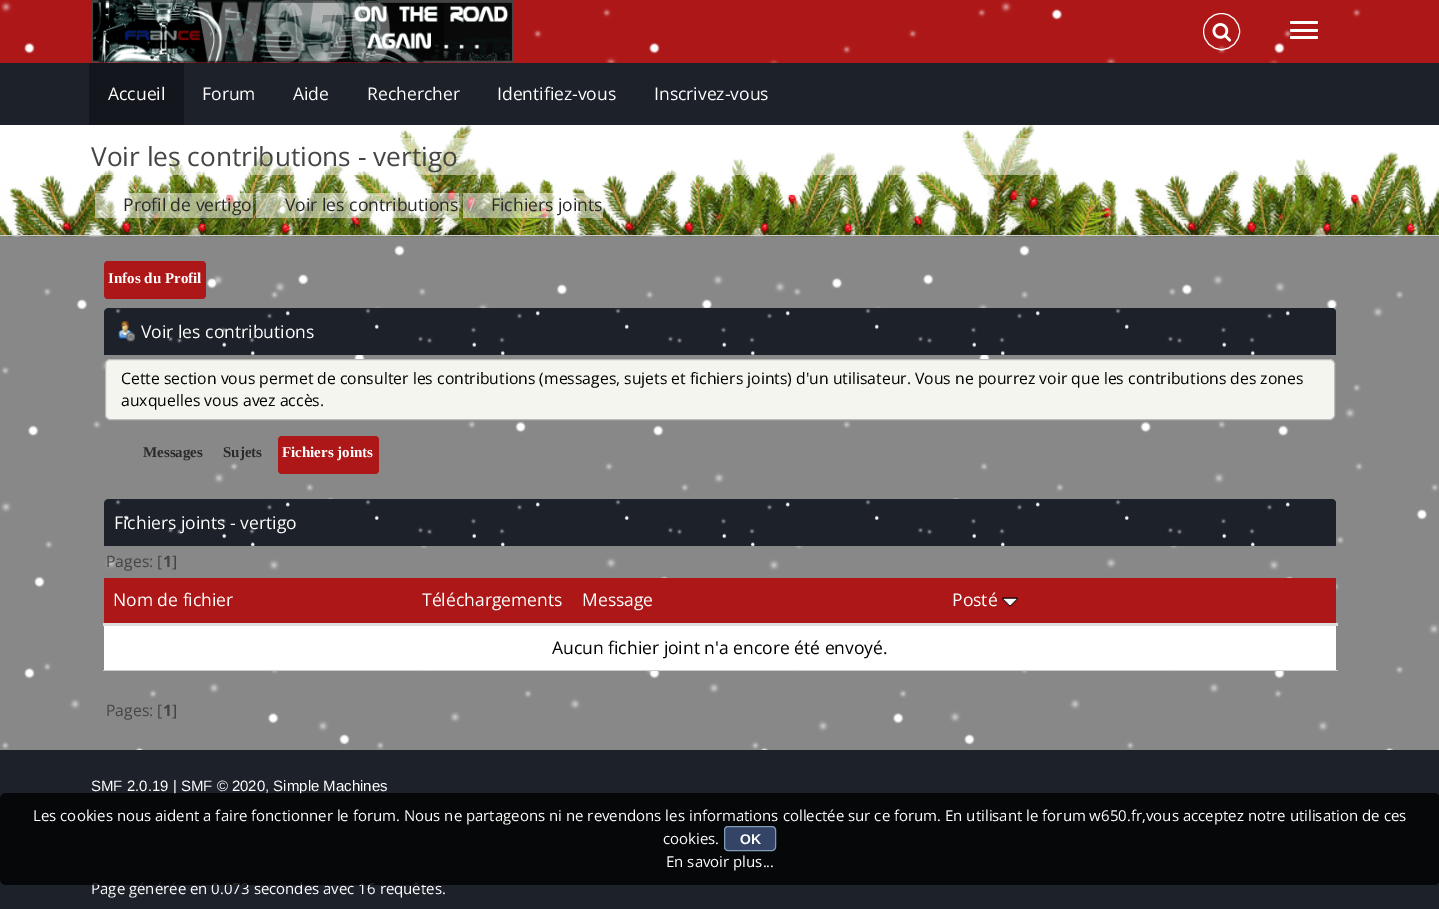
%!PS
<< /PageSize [1439 909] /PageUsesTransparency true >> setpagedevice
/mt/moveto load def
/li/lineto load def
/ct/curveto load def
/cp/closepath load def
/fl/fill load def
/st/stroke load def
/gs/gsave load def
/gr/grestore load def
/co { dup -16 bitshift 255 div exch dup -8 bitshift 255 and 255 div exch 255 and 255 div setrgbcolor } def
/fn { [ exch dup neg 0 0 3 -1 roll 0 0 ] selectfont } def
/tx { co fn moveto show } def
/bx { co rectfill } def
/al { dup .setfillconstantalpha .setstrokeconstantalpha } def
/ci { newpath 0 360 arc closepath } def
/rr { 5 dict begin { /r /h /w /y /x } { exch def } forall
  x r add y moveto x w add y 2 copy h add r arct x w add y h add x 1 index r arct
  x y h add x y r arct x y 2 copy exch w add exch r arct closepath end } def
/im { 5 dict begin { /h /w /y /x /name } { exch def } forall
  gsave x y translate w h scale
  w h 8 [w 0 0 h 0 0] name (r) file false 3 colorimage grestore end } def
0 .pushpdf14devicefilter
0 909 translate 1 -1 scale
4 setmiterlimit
0 0 1439 909 16#888888 bx
(media/1.raw) 0 245 1439 505 im
0 0 1439 63 16#AE1717 bx
(media/2.raw) 0 0 1361 63 im
(media/3.raw) 91 0 423 63 im
16#FFFFFF co
1221.5 31.5 18 ci st
(media/4.raw) 1212 23 20 19 im
1290 21 28 3 1.5 rr fl
1290 29 28 3 1.5 rr fl
1290 36 28 3 1.5 rr fl
0 63 1439 62 16#1D212A bx
89 63 95 62 16#13161C bx
(media/5.raw) 0 125 1439 112 im
0 235 1439 1 16#CCCCCC bx
0.5 al
101 138 1230 37 16#FFFFFF bx
95 193 158 25 16#FFFFFF bx
256 193 203 25 16#FFFFFF bx
463 193 140 25 16#FFFFFF bx
1 al
16#AE1717 co
104 261 102 38 4 rr fl
16#1D212A co
109 308 mt 1331 308 li 1334 308 1336 310 1336 313 ct 1336 355 li 104 355 li 104 313 li 104 310 106 308 109 308 ct cp fl
115 308 mt 1331 308 li 1334 308 1336 310 1336 313 ct 1336 355 li 115 355 li cp fl
(media/6.raw) 115 308 1175 47 im
(media/7.raw) 118 321 17 21 im
16#F5F5F0 co
105.5 359.5 1229 60 4.5 rr gs fl gr
16#BBBBBB co
st
16#AE1717 co
278 436 101 38 4 rr fl
16#1D212A co
109 499 mt 1331 499 li 1334 499 1336 501 1336 504 ct 1336 546 li 104 546 li 104 504 li 104 501 106 499 109 499 ct cp fl
115 499 mt 1331 499 li 1334 499 1336 501 1336 504 ct 1336 546 li 115 546 li cp fl
(media/8.raw) 115 499 1175 47 im
104 578 1232 45 16#AE1717 bx
104 626 1232 44 16#F9F9F9 bx
16#FFFFFF co
104 624 1232 47 5 rr fl
103 623 1235 3 16#DDDDDD bx
(media/9.raw) 1002 597 16 10 im
103 670 1235 1 16#CCCCCC bx
0 750 1439 159 16#1D212A bx
(Accueil) 108 100 /OpenSans-Regular 17.5 16#FFFFFF tx
(Forum) 202 100 /OpenSans-Regular 17.5 16#FFFFFF tx
(Aide) 293 100 /OpenSans-Regular 17.5 16#FFFFFF tx
(Rechercher) 367 100 /OpenSans-Regular 17.5 16#FFFFFF tx
(Identifiez-vous) 497 100 /OpenSans-Regular 17.5 16#FFFFFF tx
(Inscrivez-vous) 654 100 /OpenSans-Regular 17.5 16#FFFFFF tx
(Voir les contributions - vertigo) 91 166 /OpenSans-Regular 26.25 16#444444 tx
(Profil de vertigo) 123 211 /OpenSans-Regular 17.5 16#2A2A2A tx
(/) 263 211 /OpenSans-Regular 17.5 16#CCCCCC tx
(Voir les contributions) 285 211 /OpenSans-Regular 17.5 16#2A2A2A tx
(/) 469 211 /OpenSans-Regular 17.5 16#CCCCCC tx
(Fichiers joints) 491 211 /OpenSans-Regular 17.5 16#2A2A2A tx
(Infos du Profil) 108 283 /LiberationSerif-Bold 15 16#FFFFFF tx
(Voir les contributions) 141 338 /OpenSans-Regular 17.5 16#FFFFFF tx
(Cette section vous permet de consulter les contributions \(messages, sujets et fichiers joints\) d'un utilisateur. Vous ne pourrez voir que les contributions des zones) 121 384 /OpenSans-Regular 15.75 16#000000 tx
(auxquelles vous avez accès.) 121 406 /OpenSans-Regular 15.75 16#000000 tx
(Messages) 143 457 /LiberationSerif-Bold 15 16#2A2A2A tx
(Sujets) 223 457 /LiberationSerif-Bold 15 16#2A2A2A tx
(Fichiers joints) 282 457 /LiberationSerif-Bold 15 16#FFFFFF tx
(Fichiers joints - vertigo) 114 529 /OpenSans-Regular 17.5 16#FFFFFF tx
(Pages: [) 106 567 /OpenSans-Regular 15.75 16#444444 tx
(1) 163 567 /OpenSans-Bold 15.75 16#444444 tx
(]) 172 567 /OpenSans-Regular 15.75 16#444444 tx
(Nom de fichier) 113 606 /OpenSans-Regular 17.5 16#FFFFFF tx
(Téléchargements) 422 606 /OpenSans-Regular 17.5 16#FFFFFF tx
(Message) 582 606 /OpenSans-Regular 17.5 16#FFFFFF tx
(Posté) 952 606 /OpenSans-Regular 17.5 16#FFFFFF tx
(Aucun fichier joint n'a encore été envoyé.) 552 654 /OpenSans-Regular 17.5 16#000000 tx
(Pages: [) 106 716 /OpenSans-Regular 15.75 16#444444 tx
(1) 163 716 /OpenSans-Bold 15.75 16#444444 tx
(]) 172 716 /OpenSans-Regular 15.75 16#444444 tx
(SMF 2.0.19 | SMF © 2020, Simple Machines) 91 791 /LiberationSans-Regular 15 16#FFFFFF tx
(Page générée en 0.073 secondes avec 16 requêtes.) 91 894 /OpenSans-Regular 15 16#FFFFFF tx
0.8 al
16#000000 co
0 793 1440 92 6 rr fl
1 al
(Les cookies nous aident a faire fonctionner le forum. Nous ne partageons ni ne revendons les informations collectée sur ce forum. En utilisant le forum w650.fr,vous acceptez notre utilisation de ces) 33 821 /OpenSans-Regular 15 16#FFFFFF tx
(cookies.) 663 844 /OpenSans-Regular 15 16#FFFFFF tx
16#334466 co
724.5 826.5 51 24 3.5 rr gs fl gr
16#7F9DB9 co
st
(OK) 740 844 /LiberationSans-Bold 14 16#FFFFFF tx
(En savoir plus...) 666 867 /OpenSans-Regular 15 16#FFFFFF tx
.poppdf14devicefilter showpage
